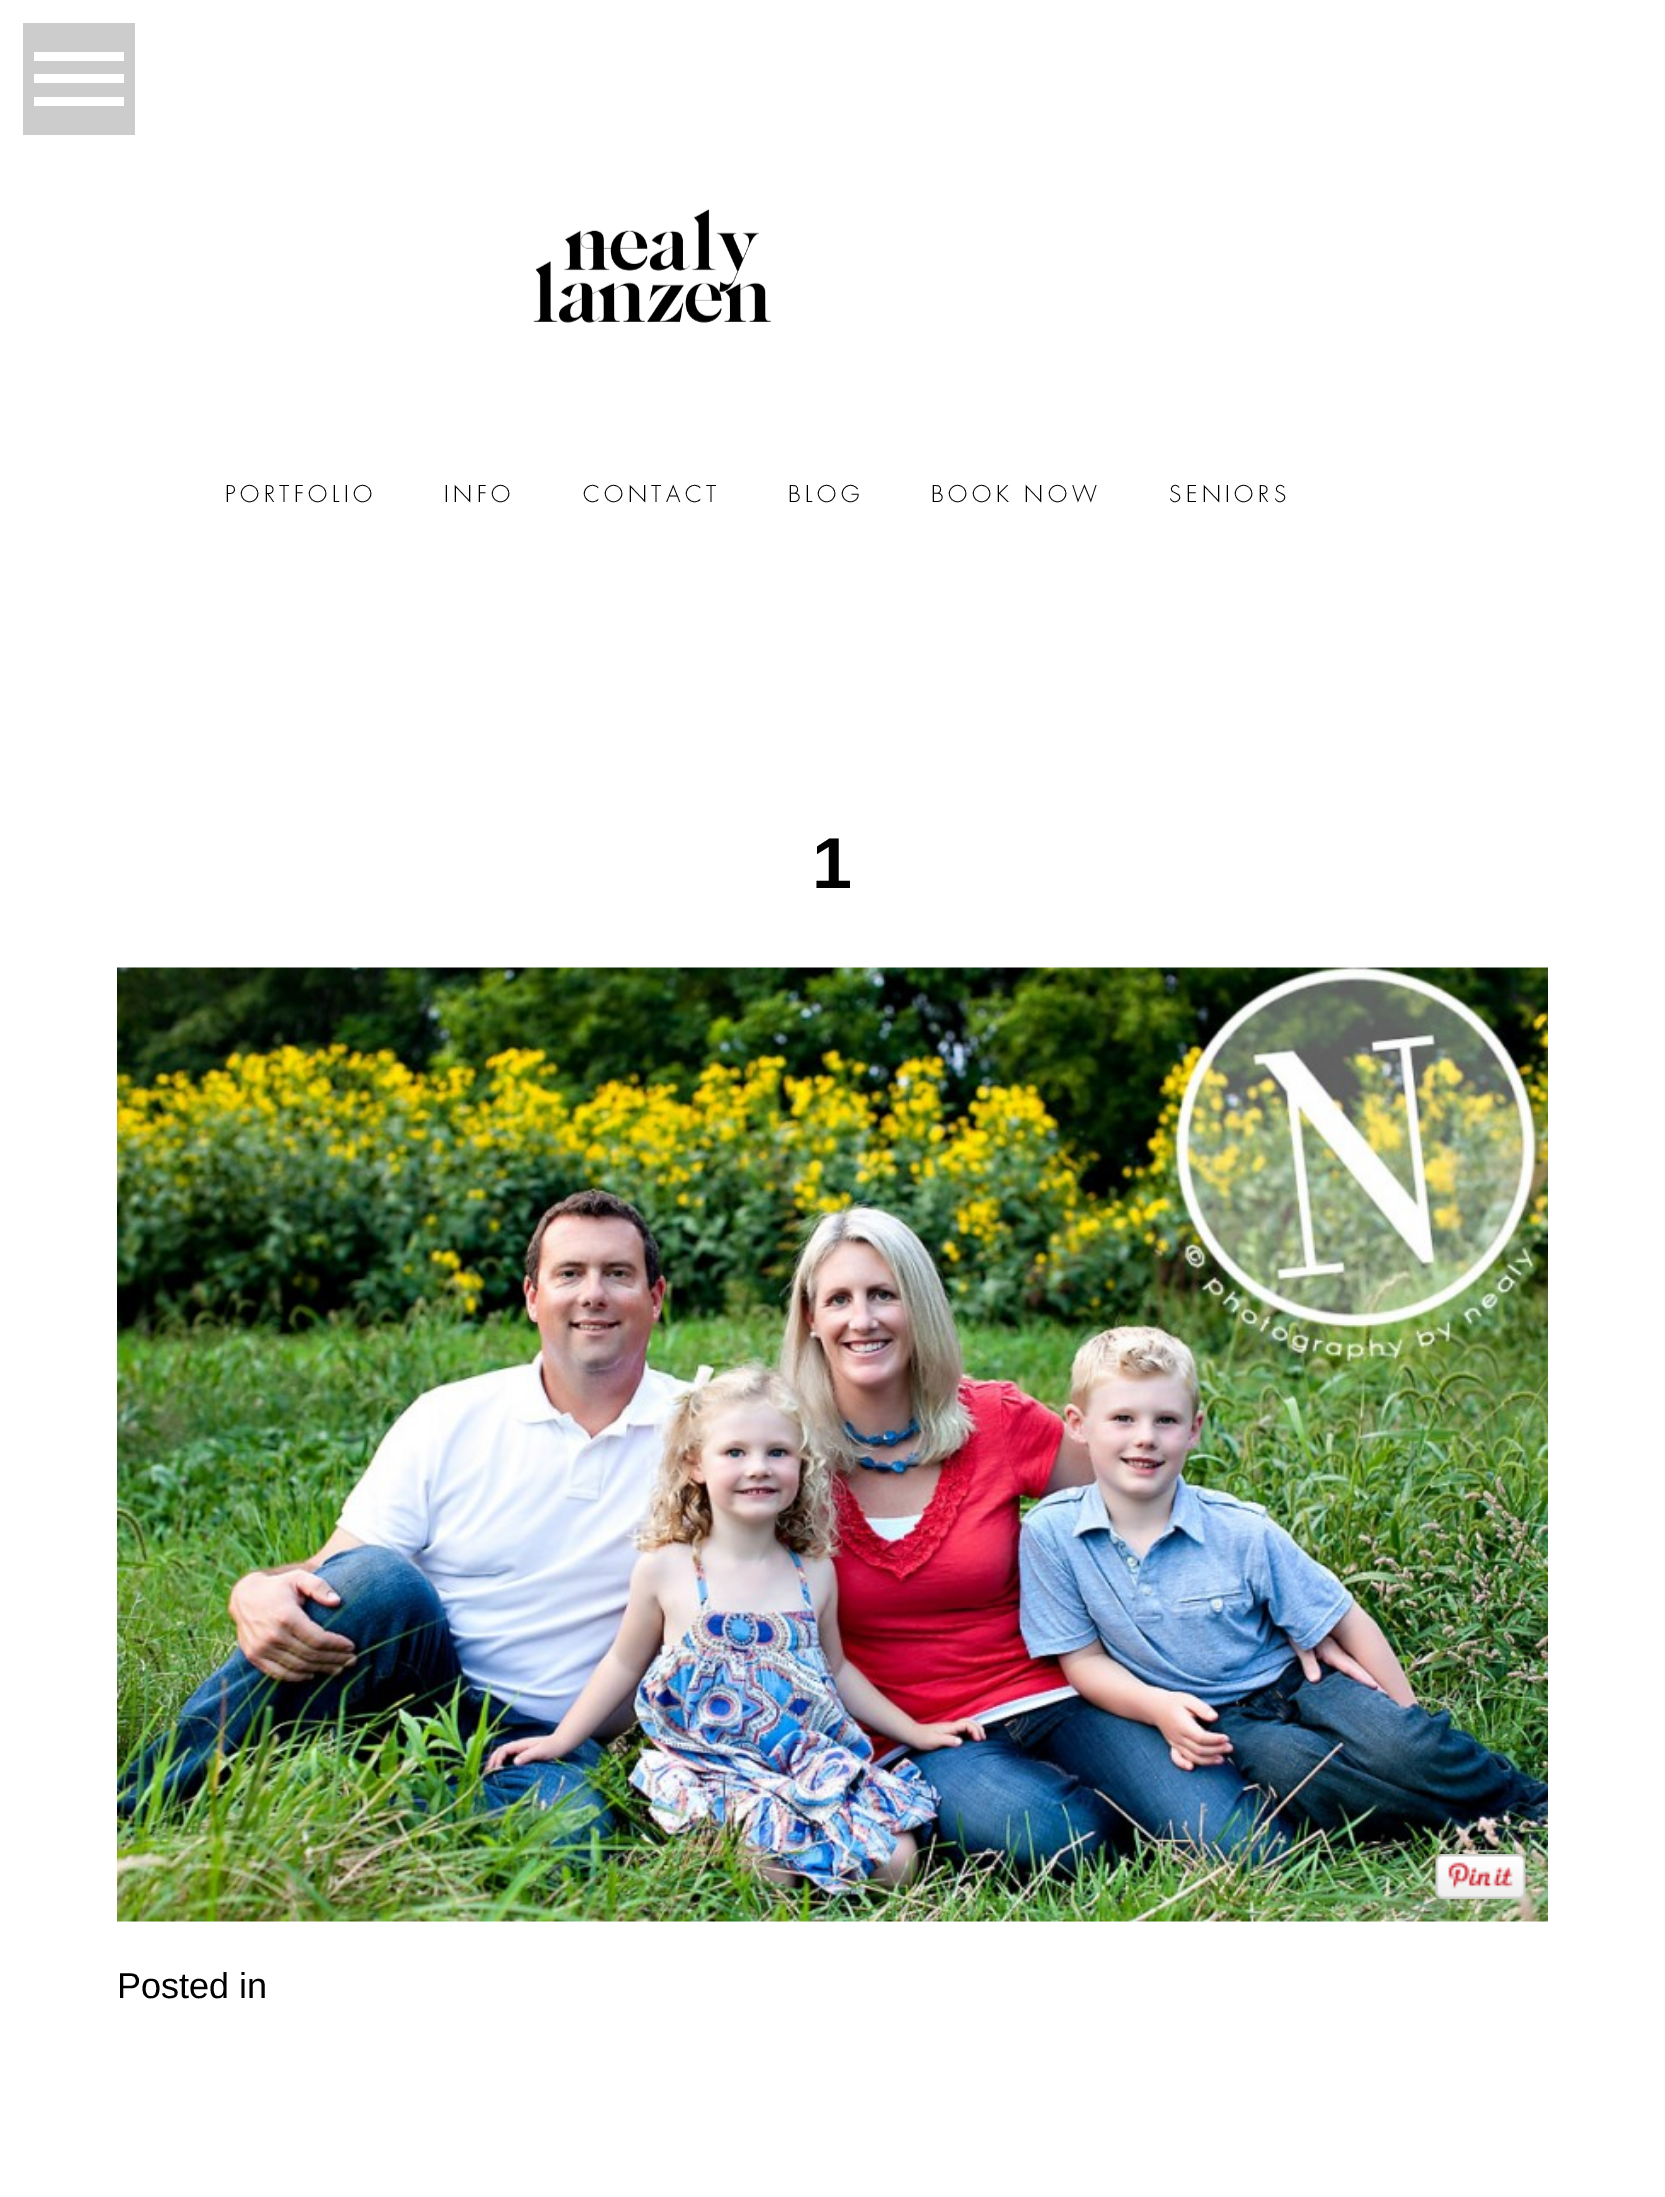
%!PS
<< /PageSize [1665 2197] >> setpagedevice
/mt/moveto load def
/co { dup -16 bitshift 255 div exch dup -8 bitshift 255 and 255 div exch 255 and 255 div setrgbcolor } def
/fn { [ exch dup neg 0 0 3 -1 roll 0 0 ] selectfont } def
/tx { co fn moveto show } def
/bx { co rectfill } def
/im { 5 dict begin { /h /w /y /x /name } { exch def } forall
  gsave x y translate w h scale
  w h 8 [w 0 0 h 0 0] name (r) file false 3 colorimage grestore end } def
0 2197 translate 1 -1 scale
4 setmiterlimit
0 0 1665 2197 16#FFFFFF bx
23 23 112 112 16#CCCCCC bx
34 52 90 9 16#FFFFFF bx
34 74 90 9 16#FFFFFF bx
34 97 90 9 16#FFFFFF bx
(media/1.raw) 533 209 238 114 im
(media/2.raw) 117 967 1431 955 im
(media/3.raw) 1435 1854 91 45 im
/Futura-Light 22.5 fn
16#000000 co
225 502 mt 4.5 0 (PORTFOLIO) ashow
444 502 mt 4.5 0 (INFO) ashow
583 502 mt 4.5 0 (CONTACT) ashow
788 502 mt 4.5 0 (BLOG) ashow
931 502 mt 4.5 0 (BOOK NOW) ashow
1169 502 mt 4.5 0 (SENIORS) ashow
(1) 812 888 /LiberationSans-Bold 72 16#000000 tx
(Posted in) 117 1998 /LiberationSans-Regular 36 16#000000 tx
showpage
